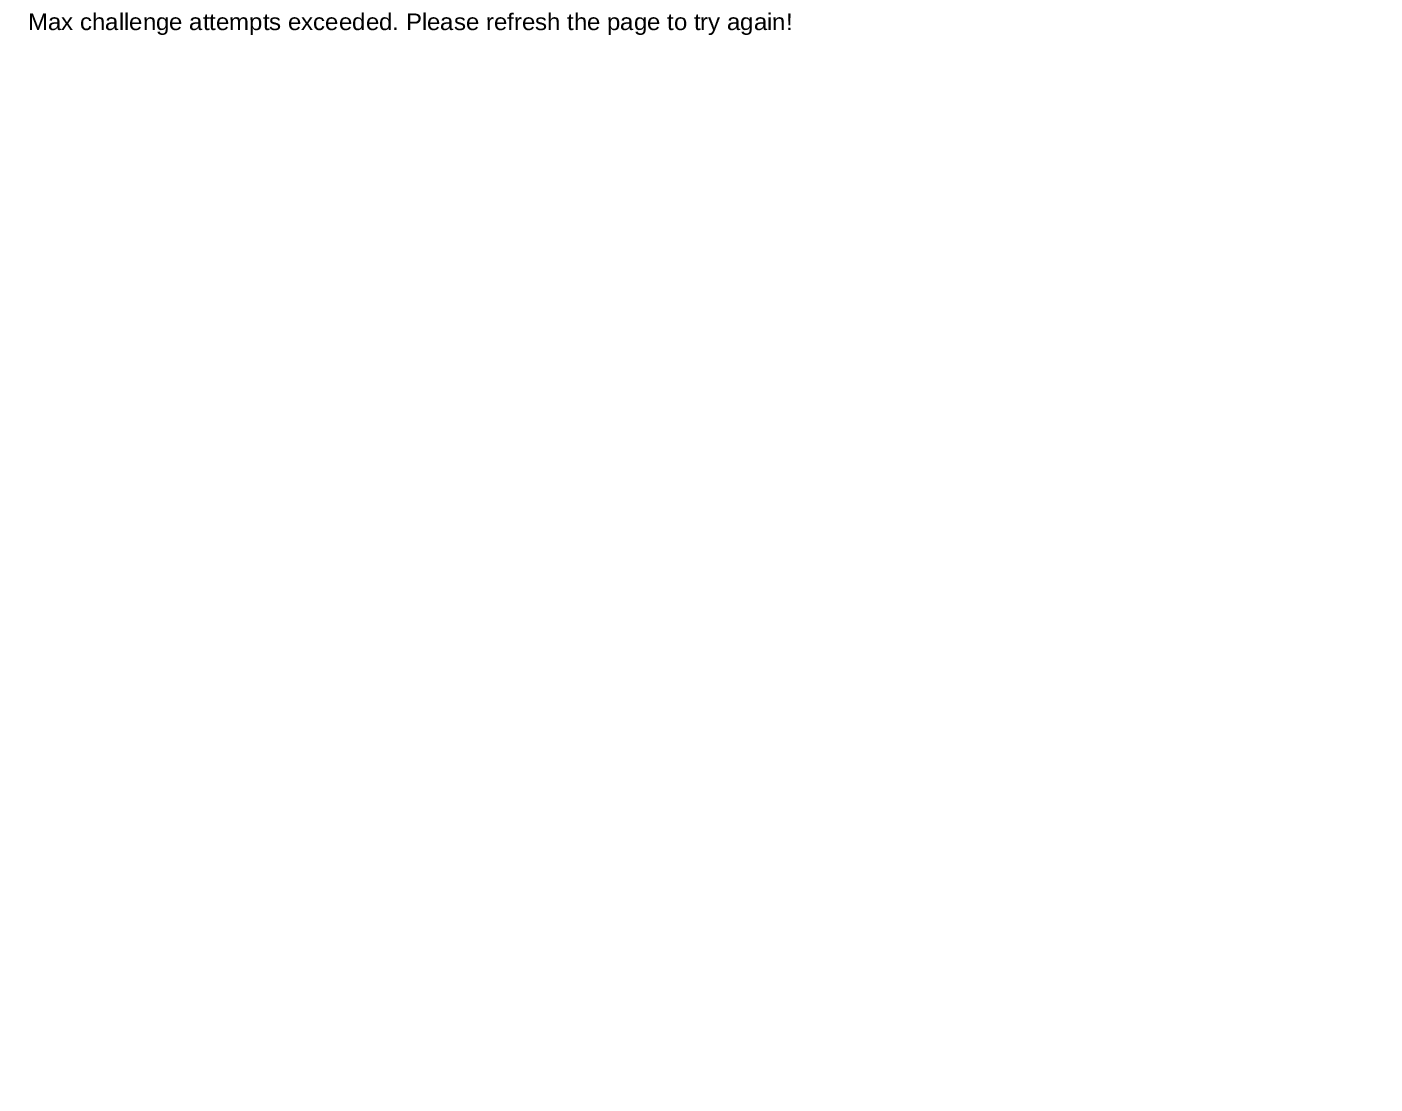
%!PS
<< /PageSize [1402 1111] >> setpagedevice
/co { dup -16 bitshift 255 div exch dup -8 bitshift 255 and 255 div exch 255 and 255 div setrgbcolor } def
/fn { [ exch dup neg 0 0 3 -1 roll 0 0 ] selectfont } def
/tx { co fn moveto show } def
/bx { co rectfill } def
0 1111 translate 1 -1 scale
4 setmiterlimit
0 0 1402 1111 16#FFFFFF bx
(Max challenge attempts exceeded. Please refresh the page to try again!) 28 30 /LiberationSans-Regular 24 16#000000 tx
showpage
